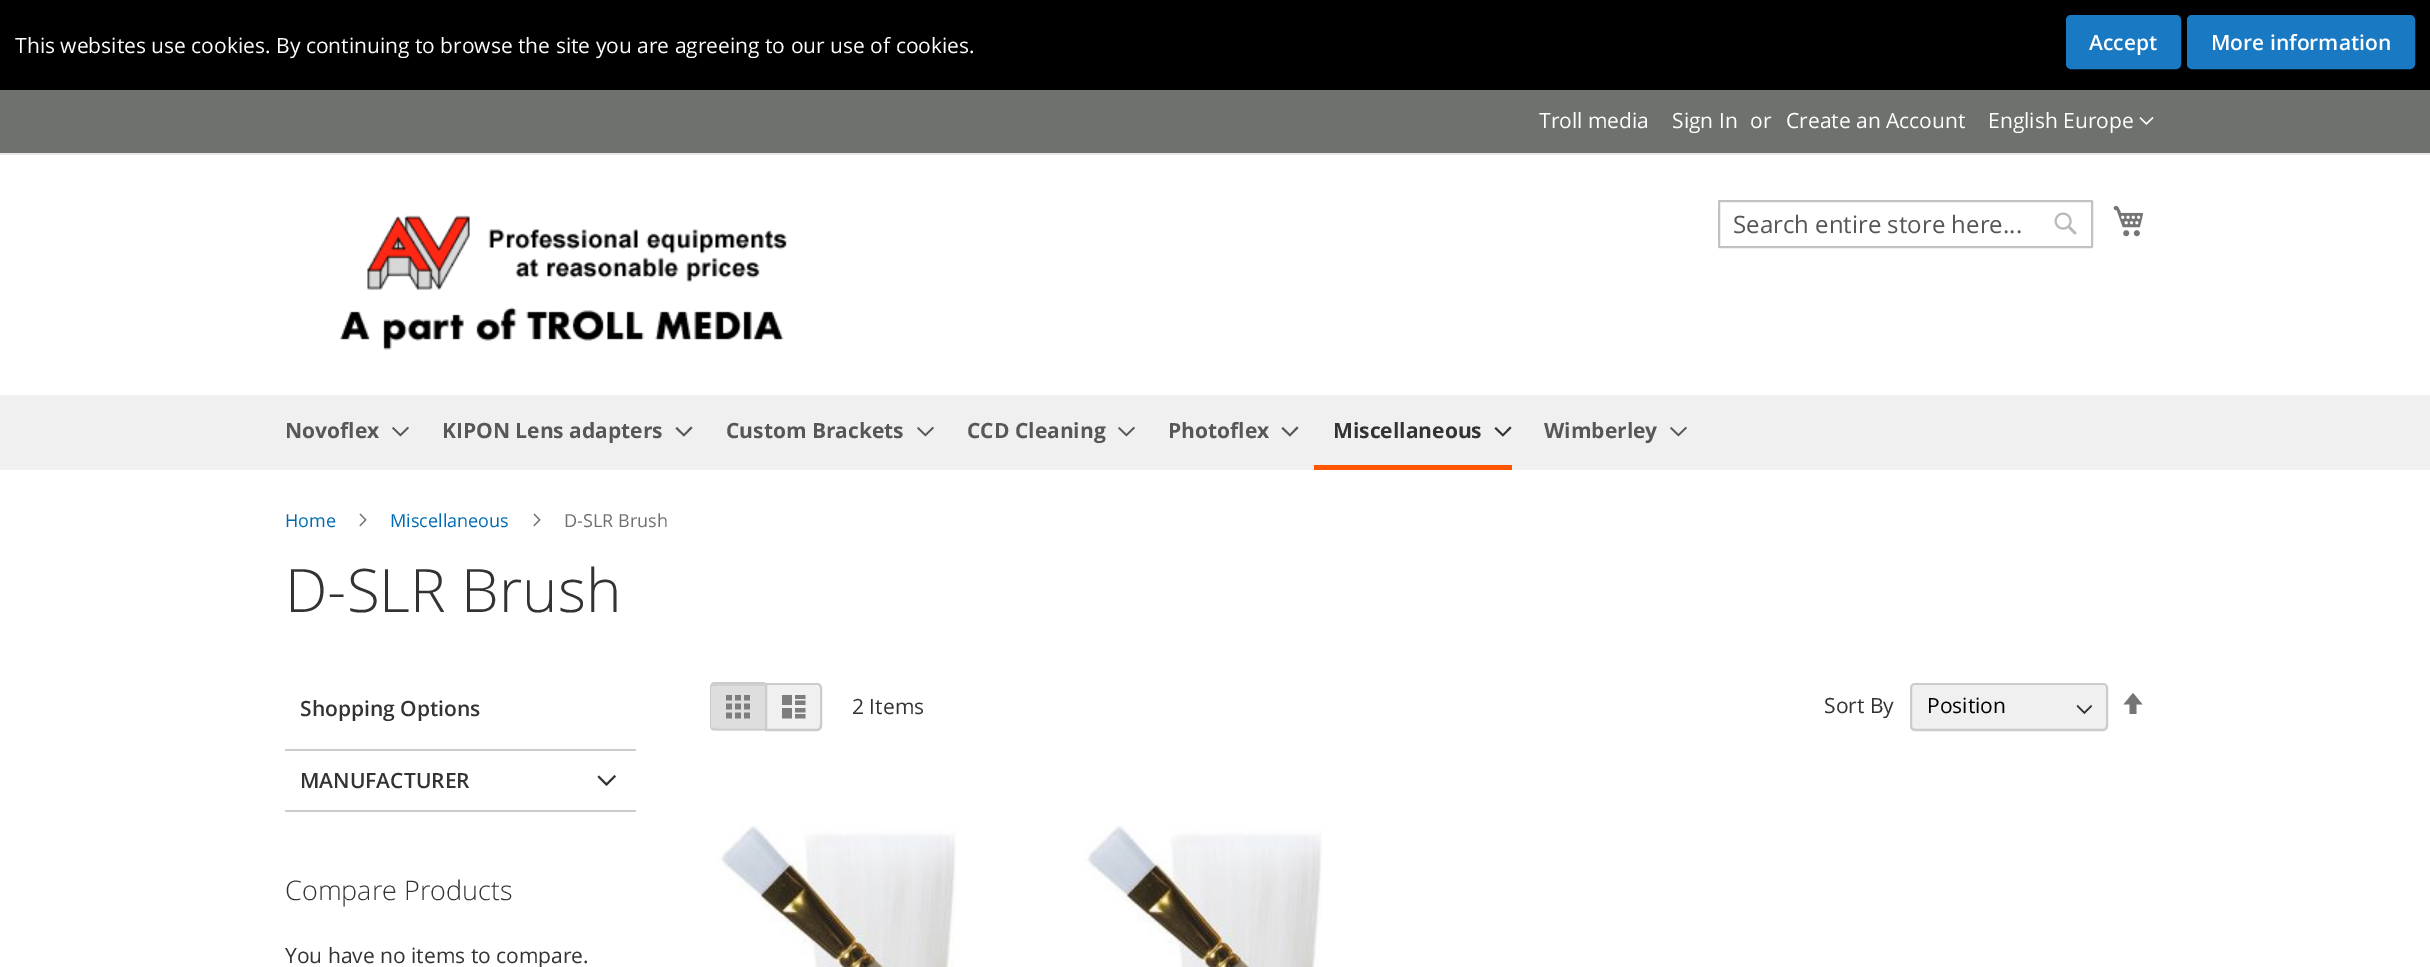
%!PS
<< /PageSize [2430 967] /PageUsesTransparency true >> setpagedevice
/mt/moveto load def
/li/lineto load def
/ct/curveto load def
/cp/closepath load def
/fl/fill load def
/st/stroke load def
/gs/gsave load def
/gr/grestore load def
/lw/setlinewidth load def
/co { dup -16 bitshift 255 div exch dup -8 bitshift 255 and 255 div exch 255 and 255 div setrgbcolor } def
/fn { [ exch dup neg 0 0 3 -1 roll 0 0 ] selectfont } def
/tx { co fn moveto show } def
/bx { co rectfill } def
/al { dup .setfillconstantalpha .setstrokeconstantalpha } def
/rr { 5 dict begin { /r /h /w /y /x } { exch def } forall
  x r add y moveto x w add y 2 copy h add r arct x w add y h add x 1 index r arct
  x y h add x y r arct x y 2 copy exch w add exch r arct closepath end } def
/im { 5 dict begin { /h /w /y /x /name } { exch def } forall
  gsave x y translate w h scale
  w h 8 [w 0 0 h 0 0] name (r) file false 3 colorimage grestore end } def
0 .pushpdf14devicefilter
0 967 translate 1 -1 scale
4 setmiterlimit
0 0 2430 967 16#FFFFFF bx
0 0 2430 90 16#000000 bx
16#1979C3 co
2067 16 113 52 4 rr gs fl gr
2 lw
st
2188 16 226 52 4 rr gs fl gr
st
0 90 2430 63 16#6E716E bx
0 153 2430 2 16#E8E8E8 bx
(media/1.raw) 2139 117 15 8 im
(media/2.raw) 340 215 447 135 im
16#C2C2C2 co
1719 201 373 46 .5 rr st
(media/3.raw) 2054 212 23 23 im
(media/4.raw) 2113 205 31 32 im
0 395 2430 75 16#F0F0F0 bx
(media/5.raw) 392 426 17 11 im
16#575757 co
684 434 mt 677 427 li 675.5 428.5 li 684 436.5 li 692.5 428 li 691 426.5 li cp fl
(media/5.raw) 917 426 17 11 im
(media/5.raw) 1118 426 17 11 im
1290 434 mt 1283 427 li 1281.5 428.5 li 1290 436.5 li 1298.5 428 li 1297 426.5 li cp fl
1314 465 198 5 16#FF5501 bx
16#333333 co
1503 434 mt 1496 427 li 1494.5 428.5 li 1503 436.5 li 1511.5 428 li 1510 426.5 li cp fl
(media/5.raw) 1670 426 17 11 im
(media/6.raw) 359 513 8 14 im
(media/6.raw) 533 513 8 14 im
285 749 351 2 16#CCCCCC bx
285 810 351 2 16#CCCCCC bx
16#333333 co
606.5 783 mt 599 775.5 li 597.5 777 li 606.5 786 li 616 776.5 li 614.5 775 li cp fl
16#DEDEDE co
715 683 mt 765 683 li 765 731 li 715 731 li 712 731 710 729 710 726 ct 710 688 li 710 685 712 683 715 683 ct cp fl
16#D9D9D9 co
711 725 mt 711 726 li 711 728 712 729 714 729 ct 765 729 li 765 728 li 720 728 li 712 727 li cp fl
16#D0D0D0 co
714 684 mt 712 684 711 686 711 688 ct 712 686 li 765 686 li 765 684 li cp fl
16#CCCCCC co
714 682 mt 765 682 li 765 730 li 714 730 li 712 730 710 728 710 726 ct 710 687 li 710 685 712 682 714 682 ct cp 714 684 mt 765 684 li 765 729 li 759 729 714 730 712 728 ct 711 727 li 711 686 li 712 685 li cp eofill
(media/7.raw) 726 695 24 24 im
16#F0F0F0 co
765 683 mt 817 683 li 820 683 822 685 822 688 ct 822 726 li 822 729 820 731 817 731 ct 765 731 li cp fl
16#E5E5E5 co
767 728 mt 767 729 li 818 729 li 820 729 821 728 821 726 ct 821 687 li 821 686 821 685 820 685 ct 820 711 li 820 713 821 727 818 728 ct cp fl
16#FFFFFF co
767 684 mt 767 686 li 810 686 li 824 686 820 685 820 701 ct 820 728 li 821 728 821 727 821 726 ct 821 687 li 821 685 820 684 818 684 ct cp fl
16#CCCCCC co
766 684 mt 817 684 li 819 684 821 686 821 688 ct 821 726 li 821 728 819 730 817 730 ct 766 730 li cp st
(media/8.raw) 782 695 24 24 im
16#F0F0F0 co
1911 684 195 45 3 rr fl
(media/9.raw) 2076 704 17 11 im
0.3 al
16#CCCCCC co
1911 724 mt 1911 726 1911 728 1913 729 ct 2104 729 li 2106 728 2106 726 2106 724 ct 2106 726 2105 728 2103 728 ct 1914 728 li 1912 728 1911 726 1911 724 ct cp fl
1 al
16#FFFFFF co
1914 686 mt 2103 686 li 2105 686 2106 687 2106 688 ct 2106 686 2105 684 2103 684 ct 1914 684 li 1912 684 1911 686 1911 688 ct 1911 687 1912 686 1914 686 ct cp fl
16#CCCCCC co
1911 684 196 46 4 rr st
16#757575 co
2133 693 mt 2123.5 704.5 li 2129.5 704.5 li 2129.5 714 li 2136.5 714 li 2136.5 704.5 li 2142.5 704.5 li cp fl
(media/10.raw) 717 826 239 141 im
(media/11.raw) 1083 826 239 141 im
(This websites use cookies. By continuing to browse the site you are agreeing to our use of cookies.) 15 53 /OpenSans-Regular 21 16#FFFFFF tx
(Accept) 2089 50 /OpenSans-SemiBold 21 16#FFFFFF tx
(More information) 2211 50 /OpenSans-SemiBold 21 16#FFFFFF tx
(Troll media) 1539 128 /OpenSans-Regular 21 16#FFFFFF tx
(Sign In) 1672 128 /OpenSans-Regular 21 16#FFFFFF tx
(or) 1750 128 /OpenSans-Regular 21 16#FFFFFF tx
(Create an Account) 1786 128 /OpenSans-Regular 21 16#FFFFFF tx
(English Europe) 1988 128 /OpenSans-Regular 21 16#FFFFFF tx
(Search entire store here...) 1733 233 /OpenSans-Regular 24 16#575757 tx
(Novoflex) 285 438 /OpenSans-Bold 21 16#575757 tx
(KIPON Lens adapters) 442 438 /OpenSans-Bold 21 16#575757 tx
(Custom Brackets) 726 438 /OpenSans-Bold 21 16#575757 tx
(CCD Cleaning) 967 438 /OpenSans-Bold 21 16#575757 tx
(Photoflex) 1168 438 /OpenSans-Bold 21 16#575757 tx
(Miscellaneous) 1333 438 /OpenSans-Bold 21 16#333333 tx
(Wimberley) 1544 438 /OpenSans-Bold 21 16#575757 tx
(Home) 285 527 /OpenSans-Regular 18 16#006BB4 tx
(Miscellaneous) 390 527 /OpenSans-Regular 18 16#006BB4 tx
(D-SLR Brush) 564 527 /OpenSans-Regular 18 16#707070 tx
(D-SLR Brush) 285 612 /OpenSans-Light 60 16#333333 tx
(Shopping Options) 300 716 /OpenSans-SemiBold 21 16#333333 tx
(MANUFACTURER) 300 788 /OpenSans-SemiBold 21 16#333333 tx
(2 Items) 852 714 /OpenSans-Regular 21 16#333333 tx
(Sort By) 1824 713 /OpenSans-Regular 21 16#333333 tx
(Position) 1927 713 /OpenSans-Regular 21 16#000000 tx
(Compare Products) 285 900 /OpenSans-Light 27 16#333333 tx
(You have no items to compare.) 285 963 /OpenSans-Regular 21 16#333333 tx
.poppdf14devicefilter showpage
